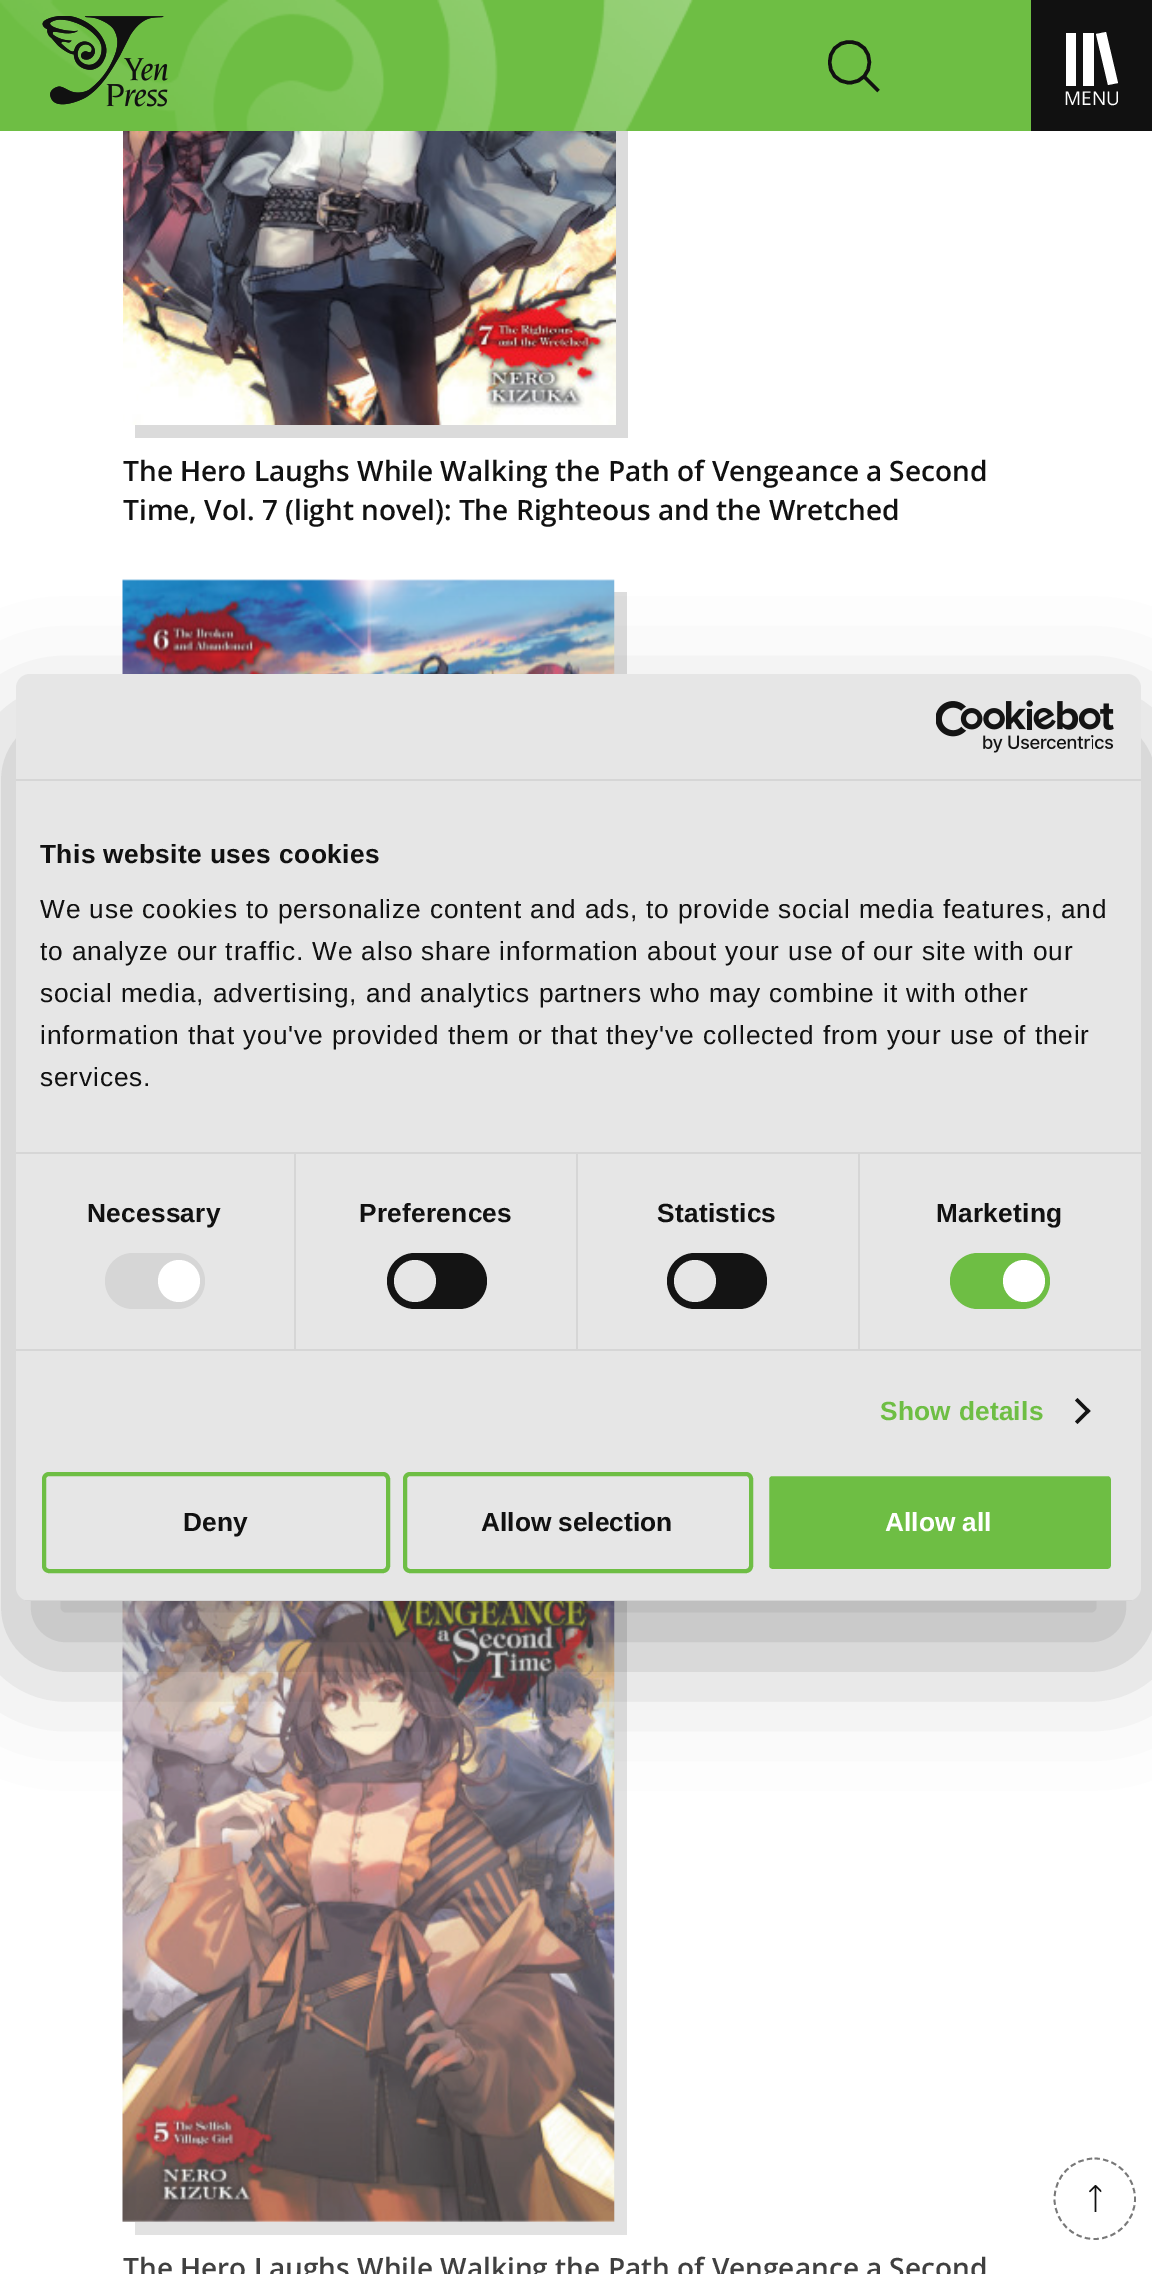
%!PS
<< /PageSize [1152 2274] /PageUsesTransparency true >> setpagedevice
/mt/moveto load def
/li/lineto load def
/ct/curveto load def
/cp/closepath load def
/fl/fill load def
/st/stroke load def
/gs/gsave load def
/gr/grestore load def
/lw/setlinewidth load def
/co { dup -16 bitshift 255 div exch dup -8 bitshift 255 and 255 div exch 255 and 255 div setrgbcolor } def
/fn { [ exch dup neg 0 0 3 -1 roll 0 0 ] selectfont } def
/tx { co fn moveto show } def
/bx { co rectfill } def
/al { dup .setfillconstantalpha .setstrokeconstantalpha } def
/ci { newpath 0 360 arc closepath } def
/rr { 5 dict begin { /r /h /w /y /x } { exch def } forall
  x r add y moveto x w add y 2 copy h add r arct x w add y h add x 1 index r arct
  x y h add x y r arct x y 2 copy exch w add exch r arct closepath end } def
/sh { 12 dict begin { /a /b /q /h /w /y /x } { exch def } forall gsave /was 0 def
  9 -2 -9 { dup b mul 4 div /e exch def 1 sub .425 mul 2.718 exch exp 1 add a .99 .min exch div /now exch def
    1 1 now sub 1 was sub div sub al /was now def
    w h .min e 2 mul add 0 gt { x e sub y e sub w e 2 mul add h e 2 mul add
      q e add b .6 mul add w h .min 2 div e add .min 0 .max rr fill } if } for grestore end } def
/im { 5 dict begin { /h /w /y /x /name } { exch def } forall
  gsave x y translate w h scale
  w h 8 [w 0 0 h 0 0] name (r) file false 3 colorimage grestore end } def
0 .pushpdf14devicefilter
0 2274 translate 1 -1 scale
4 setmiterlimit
0 0 1152 2274 16#FFFFFF bx
16#DBDBDB co
135 425 mt 135 438 li 628 438 li 628 -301 li 616 -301 li 616 425 li cp fl
0 0 1031 131 16#6EBE44 bx
(media/1.raw) 0 0 693 131 im
(media/2.raw) 42 16 126 91 im
gs
828 40 52 53 rectclip
16#111111 co
3.5 lw
849.5 82.5 mt 876 82.5 876 42 849.5 42 ct 823 42 823 82.5 849.5 82.5 ct cp st
gr
16#111111 co
3.5 lw
864 76.5 mt 878.5 91 li st
1031 0 121 131 16#111111 bx
1066 33 10 53 16#FFFFFF bx
1083 33 11 53 16#FFFFFF bx
1096 34 mt 1106 32 li 1118 83 li 1108 85 li cp fl
(media/3.raw) 123 131 493 294 im
16#DDDDDD co
135 1319 mt 135 1330 li 627 1330 li 627 592 li 614 592 li 614 1319 li cp fl
(media/4.raw) 122 579 493 95 im
16#787878 co
1.8 lw
[5.25 3.5] 0 setdash
1094.5 2158.5 mt 1117 2158.5 1135 2176.5 1135 2199 ct 1135 2221 1117 2239 1094.5 2239 ct 1072.5 2239 1054.5 2221 1054.5 2199 ct 1054.5 2176.5 1072.5 2158.5 1094.5 2158.5 ct cp st
(media/5.raw) 1089 2185 13 27 im
16#E2E2E2 co
135 2222 mt 135 2235 li 627 2235 li 627 1496 li 614 1496 li 614 2222 li cp fl
(media/6.raw) 122 1601 493 621 im
16#000000 co
16 730 1125 927 14 59.5 .3 sh
16#E6E6E6 co
16 674 1125 927 14 rr fl
16 779 1125 2 16#D6D6D6 bx
(media/7.raw) 936 700 178 53 im
294 1153 2 196 16#D6D6D6 bx
576 1153 2 196 16#D6D6D6 bx
858 1153 2 196 16#D6D6D6 bx
16 1152 1125 2 16#D6D6D6 bx
16 1349 1125 2 16#D6D6D6 bx
105 1253 100 56 28 rr fl
16#FFFFFF co
179 1281 21 ci fl
16#141414 co
387 1253 100 56 28 rr fl
16#E6E6E6 co
415 1281 21 ci fl
16#141414 co
667 1253 100 56 28 rr fl
16#E6E6E6 co
695 1281 21 ci fl
16#6EBE44 co
950 1253 100 56 28 rr fl
16#FFFFFF co
1024 1281 21 ci fl
16#141414 co
1077.5 1398 mt 1090.5 1411 li 1088 1413.5 li 1075 1400.5 li cp fl
1088 1408.5 mt 1090.5 1411 li 1077.5 1424 li 1075 1421.5 li cp fl
gs
16 674 1125 927 14 rr clip newpath
25 1600 1107 1 16#D6D6D6 bx
gr
16#6EBE44 co
4 lw
[] 0 setdash
44 1474 344 97 5 rr st
405 1474 346 97 5 rr st
767 1474 346 97 5 rr gs fl gr
16#E6E6E6 co
st
(MENU) 1064 105 /OpenSans-Regular 19 16#FFFFFF tx
(The Hero Laughs While Walking the Path of Vengeance a Second) 123 481 /OpenSans-SemiBold 28 16#111111 tx
(Time, Vol. 7 \(light novel\): The Righteous and the Wretched) 123 520 /OpenSans-SemiBold 28 16#111111 tx
(The Hero Laughs While Walking the Path of Vengeance a Second) 123 2278 /OpenSans-SemiBold 28 16#404040 tx
/LiberationSans-Bold 26.25 fn
16#111111 co
40 863 mt .4 0 (This website uses cookies) ashow
/LiberationSans-Regular 26.25 fn
40 918 mt .88 0 (We use cookies to personalize content and ads, to provide social media features, and) ashow
40 960 mt .88 0 (to analyze our traffic. We also share information about your use of our site with our) ashow
40 1002 mt .88 0 (social media, advertising, and analytics partners who may combine it with other) ashow
40 1044 mt .88 0 (information that you've provided them or that they've collected from your use of their) ashow
40 1086 mt .88 0 (services.) ashow
/LiberationSans-Bold 26.25 fn
87 1222 mt .25 0 (Necessary) ashow
359 1222 mt .25 0 (Preferences) ashow
657 1222 mt .25 0 (Statistics) ashow
936 1222 mt .25 0 (Marketing) ashow
16#6EBE44 co
880 1420 mt .25 0 (Show details) ashow
(Deny) 183 1531 /LiberationSans-Bold 26.25 16#111111 tx
(Allow selection) 481 1531 /LiberationSans-Bold 26.25 16#111111 tx
(Allow all) 885 1531 /LiberationSans-Bold 26.25 16#FFFFFF tx
.poppdf14devicefilter showpage
